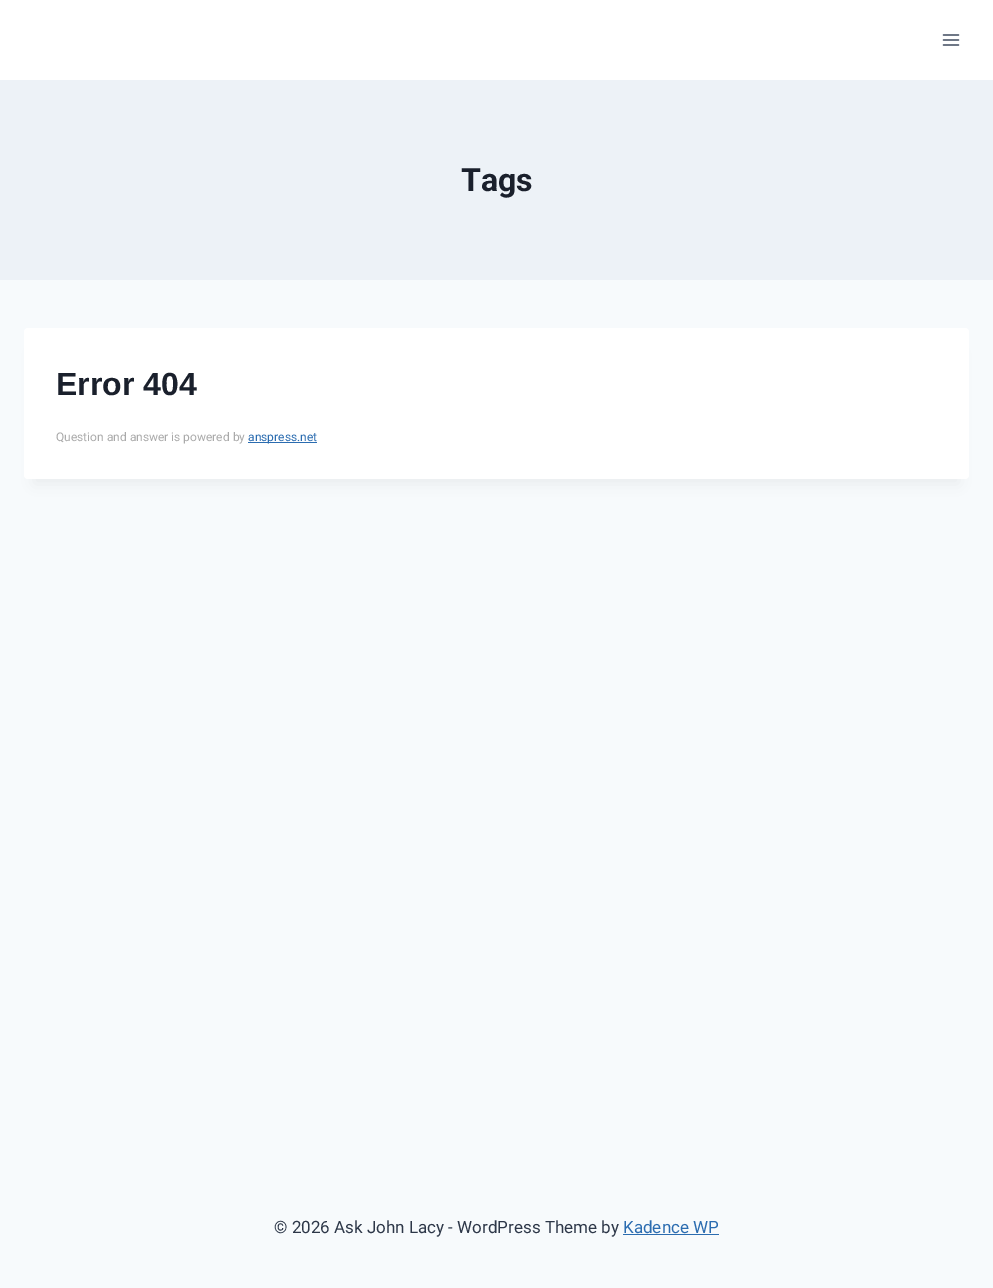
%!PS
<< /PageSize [993 1288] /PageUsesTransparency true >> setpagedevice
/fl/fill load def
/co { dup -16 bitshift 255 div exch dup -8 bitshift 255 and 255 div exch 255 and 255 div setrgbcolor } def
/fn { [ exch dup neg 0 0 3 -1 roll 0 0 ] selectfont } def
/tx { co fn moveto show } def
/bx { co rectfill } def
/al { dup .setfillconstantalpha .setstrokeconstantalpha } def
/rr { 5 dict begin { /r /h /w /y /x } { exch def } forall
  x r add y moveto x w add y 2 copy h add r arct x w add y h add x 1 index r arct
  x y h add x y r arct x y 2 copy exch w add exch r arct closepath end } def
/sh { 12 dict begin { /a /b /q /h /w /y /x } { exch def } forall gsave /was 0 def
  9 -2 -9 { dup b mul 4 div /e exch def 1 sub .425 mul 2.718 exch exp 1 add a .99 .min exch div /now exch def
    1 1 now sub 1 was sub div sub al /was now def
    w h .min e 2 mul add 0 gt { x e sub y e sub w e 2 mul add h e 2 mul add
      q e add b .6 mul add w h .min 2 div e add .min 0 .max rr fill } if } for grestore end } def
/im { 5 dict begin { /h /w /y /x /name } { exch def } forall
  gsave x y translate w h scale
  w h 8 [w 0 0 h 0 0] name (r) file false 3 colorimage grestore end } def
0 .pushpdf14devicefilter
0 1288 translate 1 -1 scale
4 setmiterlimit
0 0 993 1288 16#F7FAFC bx
0 0 993 80 16#FFFFFF bx
(media/1.raw) 942 34 18 12 im
0 80 993 200 16#EDF2F7 bx
16#000000 co
34 353 925 131 0 7.5 .05 sh
16#FFFFFF co
24 328 945 151 4 rr fl
248 442 69 1 16#2B6CB0 bx
623 1234 96 1 16#2B6CB0 bx
(Tags) 461 191 /Roboto-Bold 32 16#1A202C tx
(Error 404) 56 395 /LiberationSans-Bold 32 16#1A202C tx
(Question and answer is powered by) 56 441 /Roboto-Regular 12 16#AAAAAA tx
(anspress.net) 248 441 /Roboto-Regular 12 16#2B6CB0 tx
(© 2026 Ask John Lacy - WordPress Theme by) 274 1233 /Roboto-Regular 17 16#2D3748 tx
(Kadence WP) 623 1233 /Roboto-Regular 17 16#2B6CB0 tx
.poppdf14devicefilter showpage
